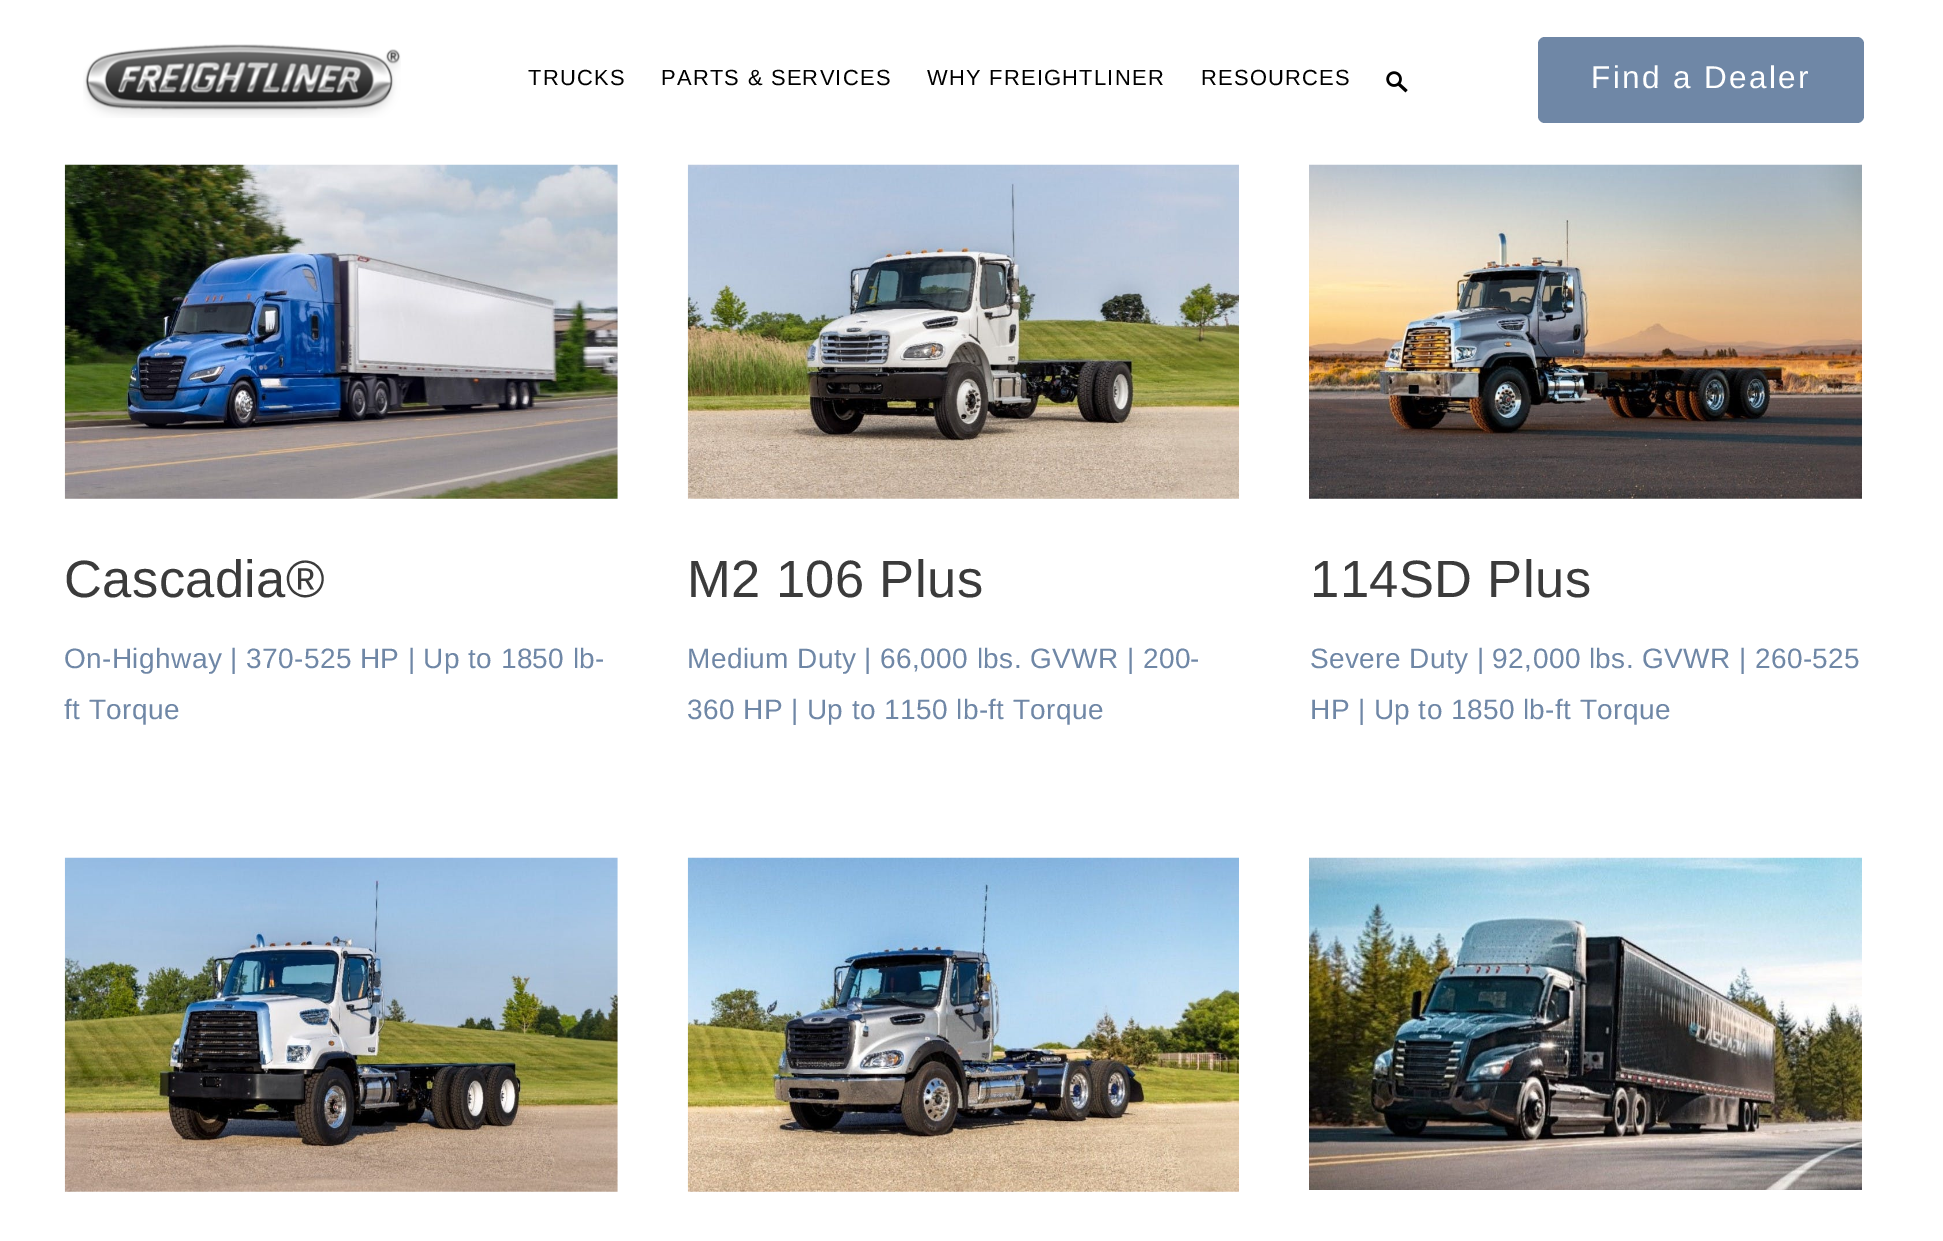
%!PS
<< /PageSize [1943 1241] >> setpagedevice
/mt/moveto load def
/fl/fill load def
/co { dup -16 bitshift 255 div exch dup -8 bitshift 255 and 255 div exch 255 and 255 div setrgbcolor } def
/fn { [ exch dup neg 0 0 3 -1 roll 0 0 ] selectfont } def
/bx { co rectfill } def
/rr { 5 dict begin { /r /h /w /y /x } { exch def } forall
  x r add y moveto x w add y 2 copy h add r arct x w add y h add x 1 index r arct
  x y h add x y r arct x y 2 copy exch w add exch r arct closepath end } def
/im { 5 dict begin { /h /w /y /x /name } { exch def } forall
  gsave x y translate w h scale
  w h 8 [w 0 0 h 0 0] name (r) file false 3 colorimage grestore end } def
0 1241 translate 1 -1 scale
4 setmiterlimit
0 0 1943 1241 16#FFFFFF bx
(media/1.raw) 83 44 318 74 im
(media/2.raw) 1386 71 22 22 im
16#6F87A6 co
1538 37 326 86 7 rr fl
(media/3.raw) 64 164 554 335 im
(media/4.raw) 687 164 552 335 im
(media/5.raw) 1309 164 553 335 im
(media/6.raw) 64 857 554 335 im
(media/7.raw) 687 857 552 335 im
(media/8.raw) 1309 857 553 333 im
/LiberationSans-Regular 21.9 fn
16#000000 co
528 85 mt 1.25 0 (TRUCKS) ashow
661 85 mt 1.25 0 (PARTS & SERVICES) ashow
927 85 mt 1.25 0 (WHY FREIGHTLINER) ashow
1201 85 mt 1.25 0 (RESOURCES) ashow
/LiberationSans-Regular 31.5 fn
16#FFFFFF co
1591 88 mt 2.4 0 (Find a Dealer) ashow
/LiberationSans-Regular 52.5 fn
16#3B3B3B co
64 597 mt .4 0 (Cascadia®) ashow
/LiberationSans-Regular 28 fn
16#6F87A6 co
64 668 mt .4 0 (On-Highway | 370-525 HP | Up to 1850 lb-) ashow
64 719 mt .4 0 (ft Torque) ashow
/LiberationSans-Regular 52.5 fn
16#3B3B3B co
687 597 mt .4 0 (M2 106 Plus) ashow
/LiberationSans-Regular 28 fn
16#6F87A6 co
687 668 mt .4 0 (Medium Duty | 66,000 lbs. GVWR | 200-) ashow
687 719 mt .4 0 (360 HP | Up to 1150 lb-ft Torque) ashow
/LiberationSans-Regular 52.5 fn
16#3B3B3B co
1310 597 mt .4 0 (114SD Plus) ashow
/LiberationSans-Regular 28 fn
16#6F87A6 co
1310 668 mt .4 0 (Severe Duty | 92,000 lbs. GVWR | 260-525) ashow
1310 719 mt .4 0 (HP | Up to 1850 lb-ft Torque) ashow
showpage
